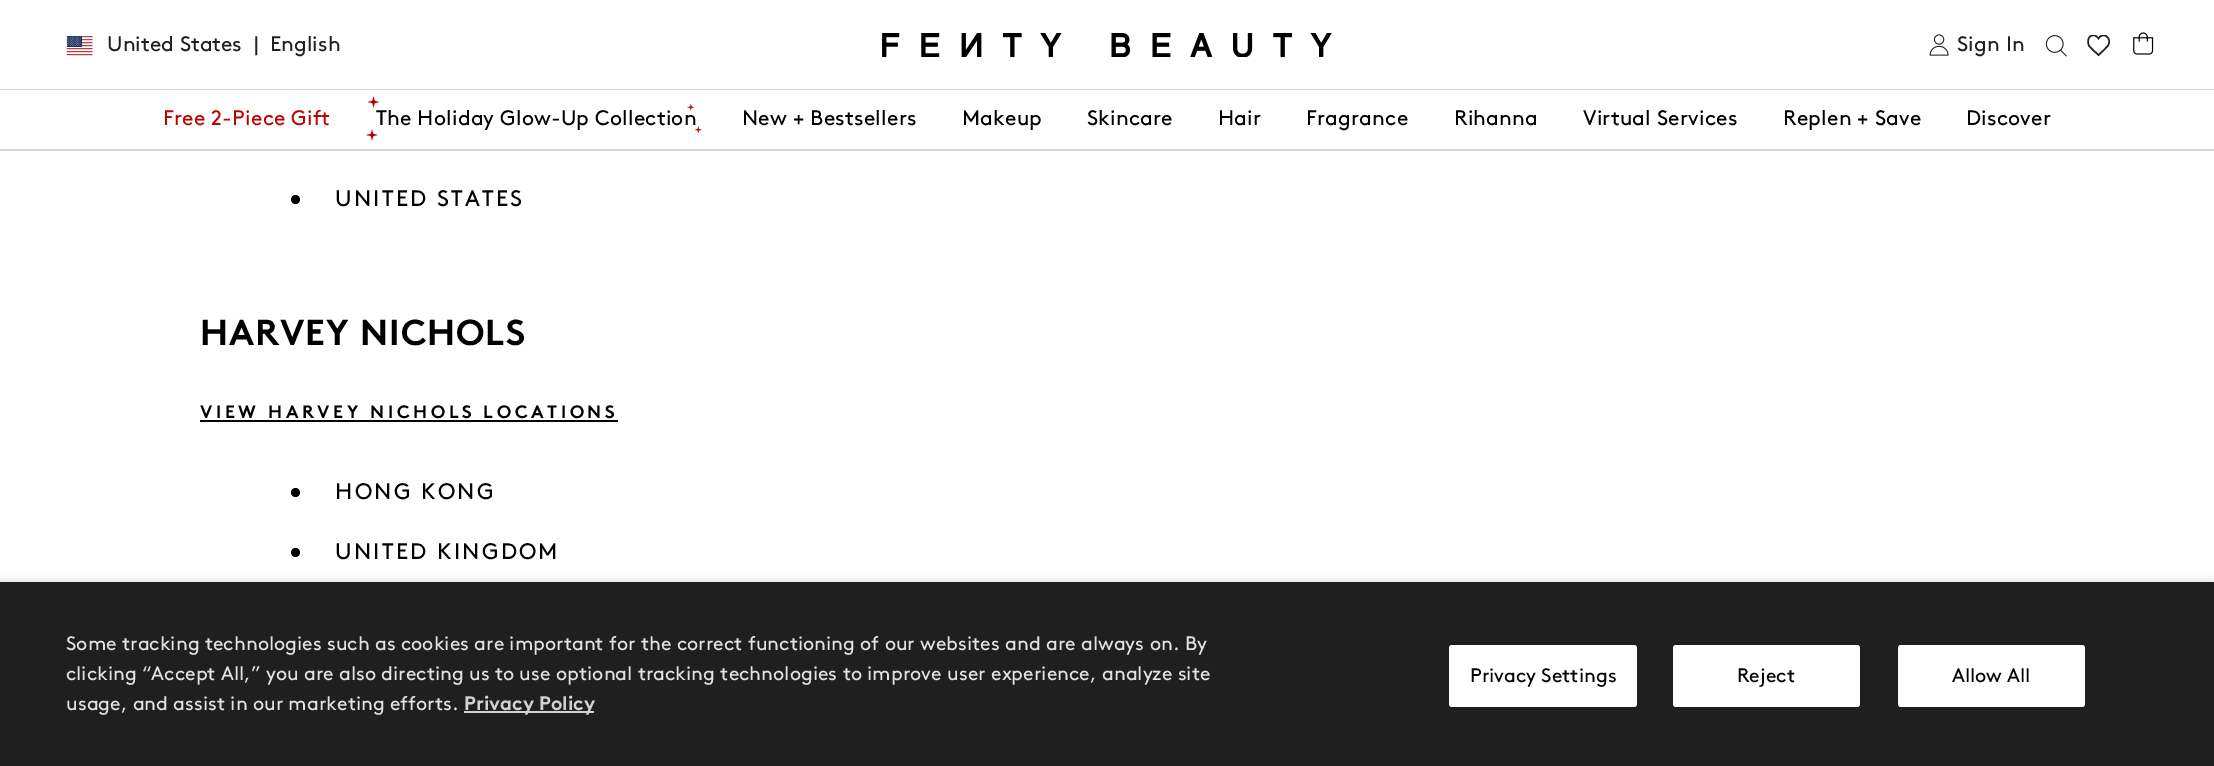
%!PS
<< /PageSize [2214 766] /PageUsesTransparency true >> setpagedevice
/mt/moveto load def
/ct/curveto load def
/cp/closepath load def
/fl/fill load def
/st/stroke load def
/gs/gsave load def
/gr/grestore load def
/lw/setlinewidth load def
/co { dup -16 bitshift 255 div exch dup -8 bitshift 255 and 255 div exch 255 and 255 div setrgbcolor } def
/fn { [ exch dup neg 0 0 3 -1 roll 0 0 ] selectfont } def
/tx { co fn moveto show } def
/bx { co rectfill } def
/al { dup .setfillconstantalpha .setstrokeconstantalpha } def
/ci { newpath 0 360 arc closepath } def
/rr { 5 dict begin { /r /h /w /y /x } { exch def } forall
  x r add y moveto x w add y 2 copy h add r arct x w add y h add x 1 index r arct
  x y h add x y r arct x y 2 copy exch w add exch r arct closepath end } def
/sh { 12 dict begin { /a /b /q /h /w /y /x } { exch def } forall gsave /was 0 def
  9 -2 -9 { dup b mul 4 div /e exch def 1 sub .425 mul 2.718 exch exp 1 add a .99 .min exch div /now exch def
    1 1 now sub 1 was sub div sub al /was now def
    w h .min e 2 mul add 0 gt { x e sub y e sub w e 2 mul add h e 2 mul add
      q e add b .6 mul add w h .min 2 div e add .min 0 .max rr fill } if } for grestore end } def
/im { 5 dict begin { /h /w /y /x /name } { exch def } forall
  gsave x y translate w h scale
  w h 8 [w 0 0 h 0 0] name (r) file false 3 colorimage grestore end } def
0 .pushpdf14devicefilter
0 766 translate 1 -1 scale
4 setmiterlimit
0 0 2214 766 16#FFFFFF bx
0 89 2214 1 16#D8D8D8 bx
(media/1.raw) 66 36 27 20 im
(media/2.raw) 882 33 450 24 im
(media/3.raw) 1929 34 20 22 im
(media/4.raw) 2045 35 22 22 im
gs
2087 35 24 22 rectclip
16#231F20 co
1.5 lw
1 setlinecap
2098.5 55 mt 2101.5 52 2105.5 49 2108 45.5 ct 2112.5 38 2103 31 2098.5 38.5 ct 2093 30.5 2085 38.5 2089 45.5 ct 2091.5 49.5 2095.5 52 2098.5 55 ct cp st
gr
(media/5.raw) 2133 32 21 23 im
0 149 2214 2 16#D8D8D8 bx
(media/7.raw) 368 96 12 12 im
(media/8.raw) 695 126 7 8 im
16#000000 co
295.5 199.5 4.5 ci fl
200 420 418 2 16#000000 bx
295.5 492.5 4.5 ci fl
295.5 552.5 4.5 ci fl
0 582 2214 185 0 4.5 .18 sh
0 582 2214 184 16#1F1F1F bx
16#FFFFFF co
1449 645 188 62 3 rr fl
464 711 130 2 16#D2D2D2 bx
16#FFFFFF co
1673 645 187 62 3 rr fl
1898 645 187 62 3 rr fl
(United States) 107 51 /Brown-Regular 21 16#231F20 tx
(|) 254 51 /Brown-Regular 21 16#231F20 tx
(English) 270 51 /Brown-Regular 21 16#231F20 tx
1957 51 mt .2 0 (Sign In) ashow
16#BD0300 co
163 125 mt .2 0 (Free 2-Piece Gift) ashow
16#000000 co
376 125 mt .2 0 (The Holiday Glow-Up Collection) ashow
(media/6.raw) 687 104 8 7 im
(media/9.raw) 366 129 12 12 im
742 125 mt .2 0 (New + Bestsellers) ashow
962 125 mt .2 0 (Makeup) ashow
1087 125 mt .2 0 (Skincare) ashow
1218 125 mt .2 0 (Hair) ashow
1306 125 mt .2 0 (Fragrance) ashow
1454 125 mt .2 0 (Rihanna) ashow
1583 125 mt .2 0 (Virtual Services) ashow
1783 125 mt .2 0 (Replen + Save) ashow
1966 125 mt .2 0 (Discover) ashow
/Brown-Regular 22.5 fn
335 206 mt 2.25 0 (UNITED STATES) ashow
/Brown-Bold 36 fn
200 345 mt .9 0 (HARVEY NICHOLS) ashow
/Brown-Bold 18 fn
200 418 mt 3.6 0 (VIEW HARVEY NICHOLS LOCATIONS) ashow
/Brown-Regular 22.5 fn
335 499 mt 2.25 0 (HONG KONG) ashow
335 559 mt 2.25 0 (UNITED KINGDOM) ashow
(Some tracking technologies such as cookies are important for the correct functioning of our websites and are always on. By) 66 650 /Brown-Regular 19.5 16#E3E3E3 tx
(clicking “Accept All,” you are also directing us to use optional tracking technologies to improve user experience, analyze site) 66 680 /Brown-Regular 19.5 16#E3E3E3 tx
(Privacy Settings) 1470 682 /Brown-Regular 19.5 16#000000 tx
(usage, and assist in our marketing efforts.) 66 710 /Brown-Regular 19.5 16#E3E3E3 tx
(Privacy Policy) 464 710 /Brown-Bold 19.5 16#D2D2D2 tx
(Reject) 1737 682 /Brown-Regular 19.5 16#000000 tx
(Allow All) 1952 682 /Brown-Regular 19.5 16#000000 tx
.poppdf14devicefilter showpage
